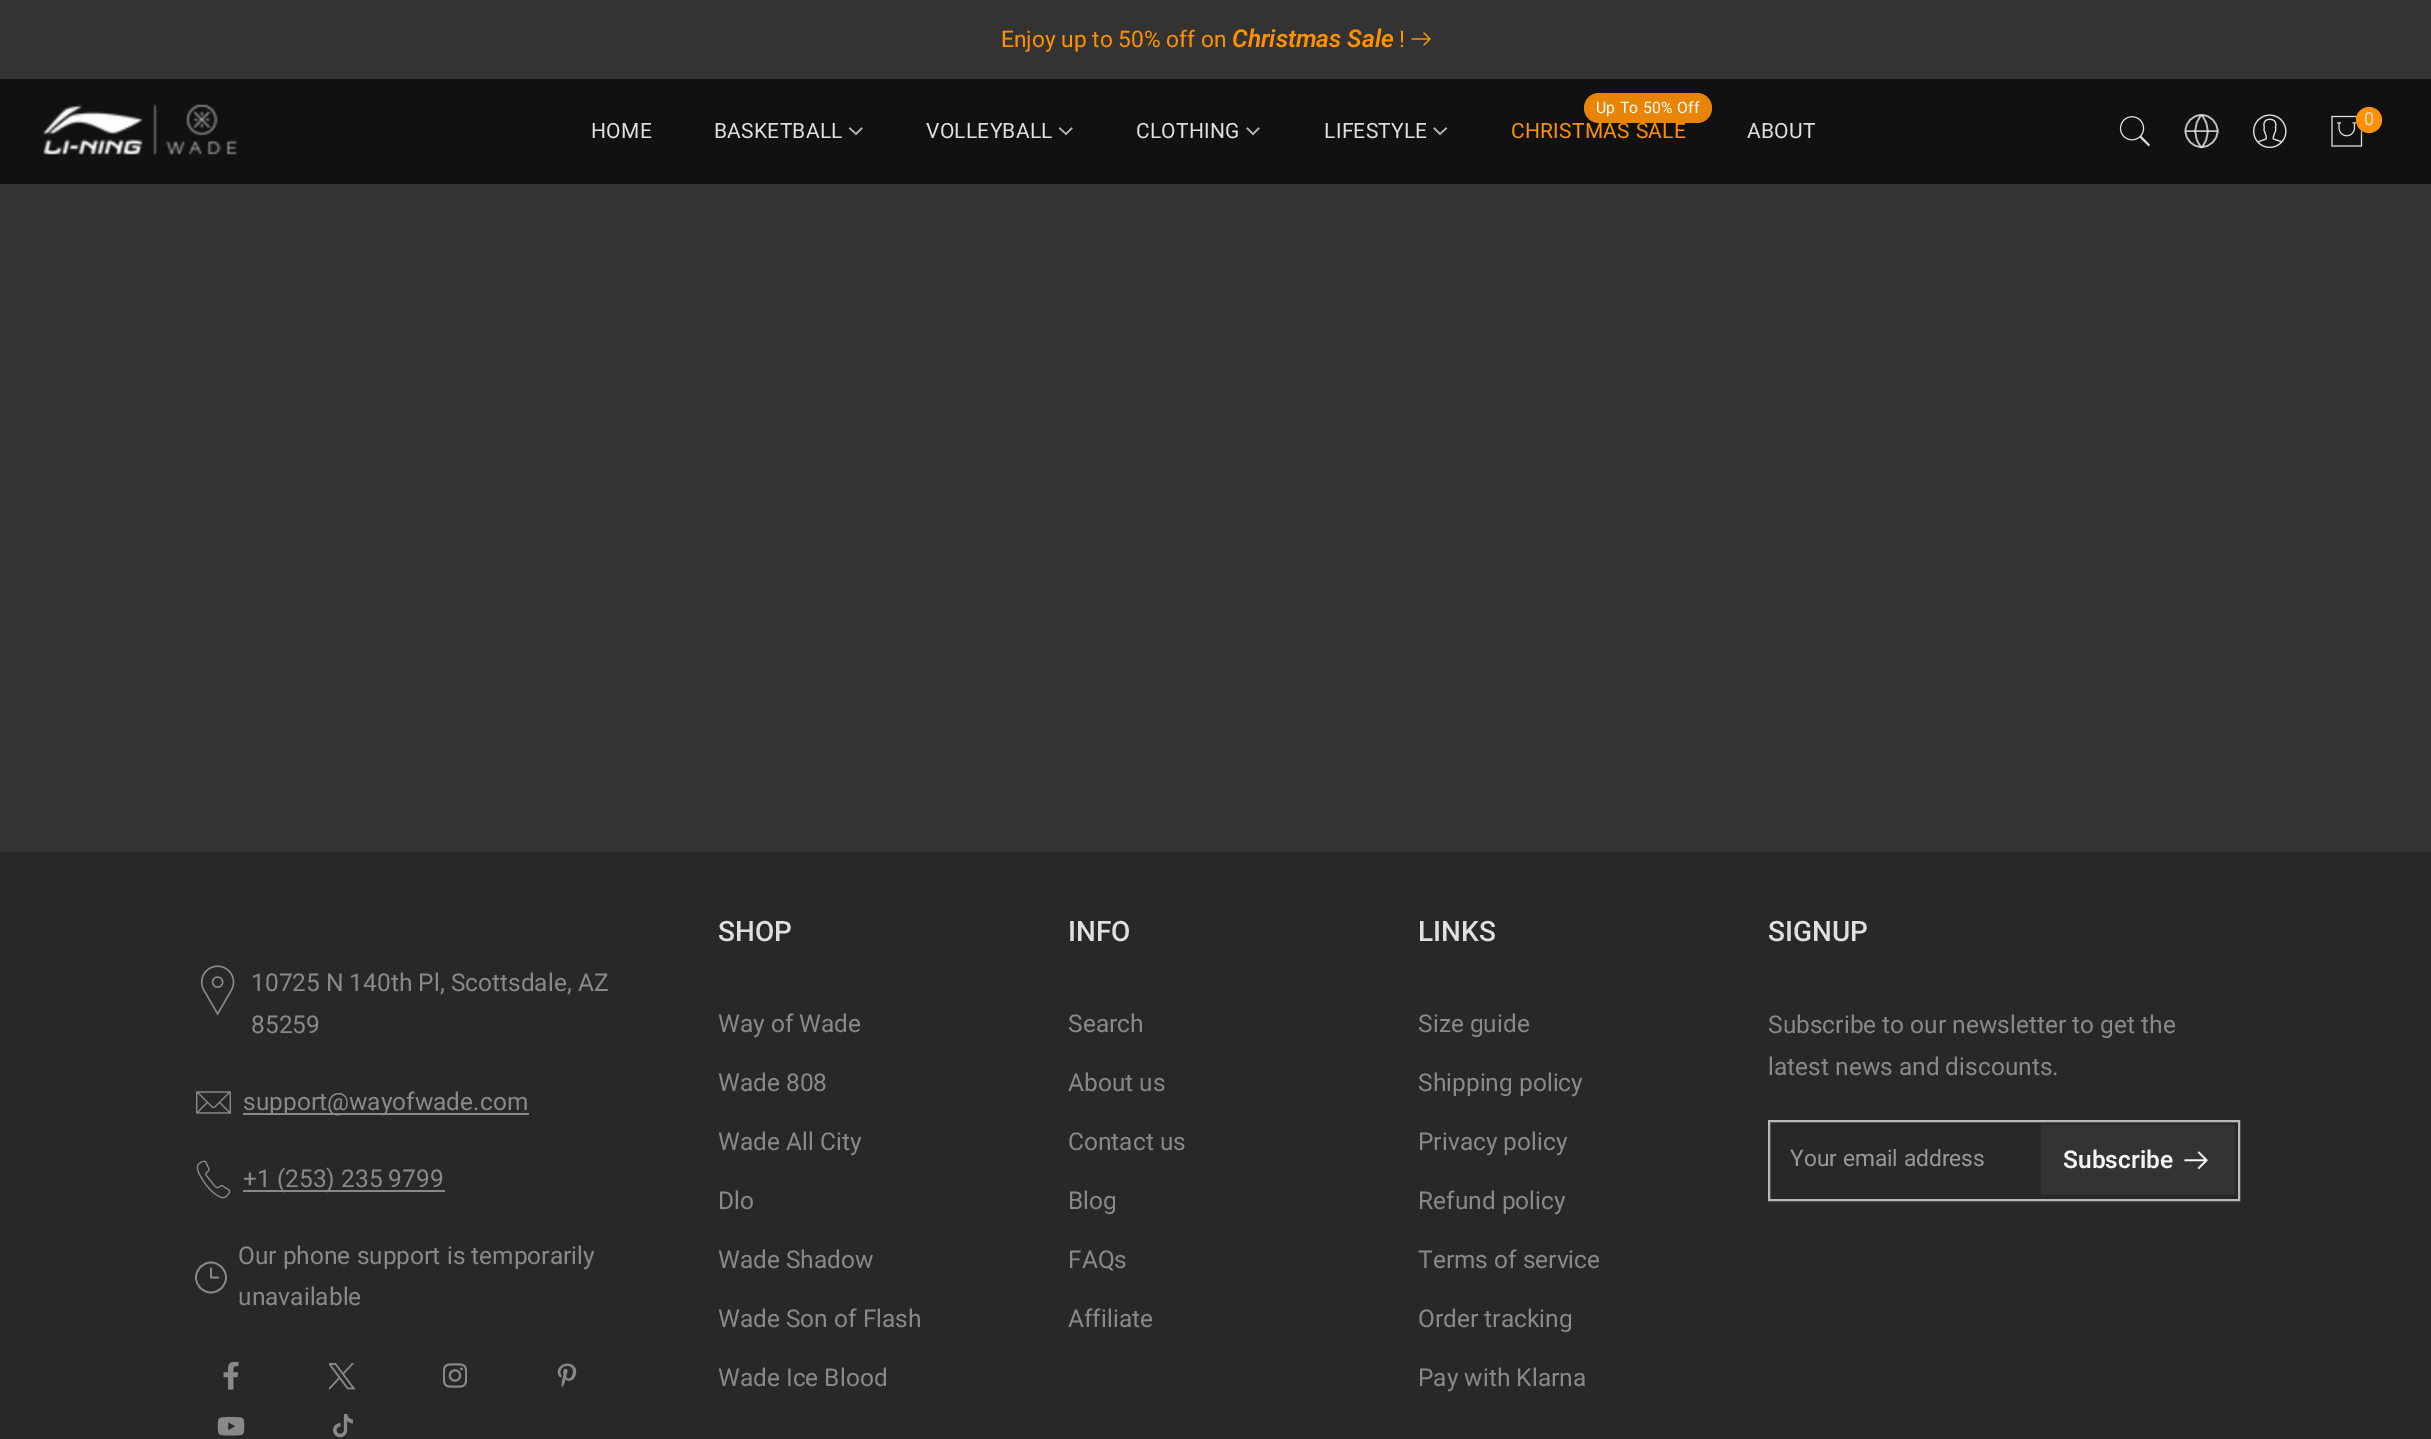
%!PS
<< /PageSize [2431 1439] /PageUsesTransparency true >> setpagedevice
/mt/moveto load def
/li/lineto load def
/ct/curveto load def
/cp/closepath load def
/fl/fill load def
/st/stroke load def
/lw/setlinewidth load def
/co { dup -16 bitshift 255 div exch dup -8 bitshift 255 and 255 div exch 255 and 255 div setrgbcolor } def
/fn { [ exch dup neg 0 0 3 -1 roll 0 0 ] selectfont } def
/tx { co fn moveto show } def
/bx { co rectfill } def
/al { dup .setfillconstantalpha .setstrokeconstantalpha } def
/ci { newpath 0 360 arc closepath } def
/rr { 5 dict begin { /r /h /w /y /x } { exch def } forall
  x r add y moveto x w add y 2 copy h add r arct x w add y h add x 1 index r arct
  x y h add x y r arct x y 2 copy exch w add exch r arct closepath end } def
/sh { 12 dict begin { /a /b /q /h /w /y /x } { exch def } forall gsave /was 0 def
  9 -2 -9 { dup b mul 4 div /e exch def 1 sub .425 mul 2.718 exch exp 1 add a .99 .min exch div /now exch def
    1 1 now sub 1 was sub div sub al /was now def
    w h .min e 2 mul add 0 gt { x e sub y e sub w e 2 mul add h e 2 mul add
      q e add b .6 mul add w h .min 2 div e add .min 0 .max rr fill } if } for grestore end } def
/im { 5 dict begin { /h /w /y /x /name } { exch def } forall
  gsave x y translate w h scale
  w h 8 [w 0 0 h 0 0] name (r) file false 3 colorimage grestore end } def
0 .pushpdf14devicefilter
0 1439 translate 1 -1 scale
4 setmiterlimit
0 0 2431 1439 16#333333 bx
(media/1.raw) 1411 32 20 14 im
0 79 2431 105 16#111111 bx
(media/2.raw) 43 104 194 51 im
16#B7B7B7 co
1.5 lw
2 setlinecap
861.5 128.5 mt 856 134 li 850 128.5 li st
1071.5 128.5 mt 1066 134 li 1060 128.5 li st
1258.5 128.5 mt 1253 134 li 1247.5 128.5 li st
1446 128.5 mt 1440 134 li 1434.5 128.5 li st
(media/3.raw) 2119 116 32 31 im
16#C1C1C1 co
1.6 lw
0 setlinecap
2201.5 131 16 ci st
0.85 al
16#E0E0E0 co
1 setlinecap
1 setlinejoin
2185.5 131 mt 2217.5 131 li st
2201.5 115 mt 2210 124.5 2210 138 2201.5 147.5 ct 2193 138 2193 124.5 2201.5 115 ct cp st
1 al
(media/4.raw) 2252 114 35 35 im
(media/5.raw) 2331 115 32 32 im
16#000000 co
2357 109 27 26 13 2.5 .3 sh
16#FF9000 co
2369 120 13 ci fl
0 852 2431 587 16#282828 bx
(media/6.raw) 200 965 35 51 im
(media/7.raw) 196 1091 35 23 im
243 1113 286 2 16#898989 bx
(media/8.raw) 196 1160 35 39 im
243 1190 202 2 16#898989 bx
1.7 lw
0 setlinecap
0 setlinejoin
211 1277.5 15 ci st
1 setlinecap
1 setlinejoin
211 1268.5 mt 211 1277.5 li 218 1277.5 li st
(media/9.raw) 223 1362 16 28 im
(media/10.raw) 329 1363 27 27 im
(media/11.raw) 443 1363 24 25 im
(media/12.raw) 557 1363 20 25 im
(media/13.raw) 217 1416 28 20 im
(media/14.raw) 333 1414 20 24 im
16#B9B9B9 co
2 lw
0 setlinecap
0 setlinejoin
1769 1121 470 79 rectstroke
2041 1125 194 70 16#333333 bx
(media/15.raw) 2184 1151 24 19 im
(Enjoy up to 50% off on) 1001 47 /Roboto-Regular 22.75 16#FF9000 tx
(Christmas Sale) 1232 47 /Roboto-SemiBoldItalic 24.5 16#FF9000 tx
(!) 1399 47 /Roboto-Regular 22.75 16#FF9000 tx
/Roboto-Regular 21 fn
16#E0E0E0 co
591 138 mt .25 0 (HOME) ashow
714 138 mt .25 0 (BASKETBALL) ashow
926 138 mt .25 0 (VOLLEYBALL) ashow
1136 138 mt .25 0 (CLOTHING) ashow
1324 138 mt .25 0 (LIFESTYLE) ashow
16#FF9000 co
1511 138 mt .25 0 (CHRISTMAS SALE) ashow
16#E88506 co
1584 93 128 30 15 rr fl
/Roboto-Regular 15.75 fn
16#FFFFFF co
1596 113 mt .25 0 (Up To 50% Off) ashow
/Roboto-Regular 21 fn
16#E0E0E0 co
1747 138 mt .25 0 (ABOUT) ashow
(0) 2364 125 /Roboto-Regular 18 16#E0E0E0 tx
(10725 N 140th Pl, Scottsdale, AZ) 251 991 /Roboto-Regular 24.5 16#898989 tx
(85259) 251 1033 /Roboto-Regular 24.5 16#898989 tx
(support@wayofwade.com) 243 1110 /Roboto-Regular 24.5 16#898989 tx
(+1 \(253\) 235 9799) 243 1187 /Roboto-Regular 24.5 16#898989 tx
(Our phone support is temporarily) 238 1264 /Roboto-Regular 24.5 16#898989 tx
(unavailable) 238 1305 /Roboto-Regular 24.5 16#898989 tx
(SHOP) 718 941 /Roboto-Medium 28 16#E0E0E0 tx
(Way of Wade) 718 1032 /Roboto-Regular 24.5 16#898989 tx
(Wade 808) 718 1091 /Roboto-Regular 24.5 16#898989 tx
(Wade All City) 718 1150 /Roboto-Regular 24.5 16#898989 tx
(Dlo) 718 1209 /Roboto-Regular 24.5 16#898989 tx
(Wade Shadow) 718 1268 /Roboto-Regular 24.5 16#898989 tx
(Wade Son of Flash) 718 1327 /Roboto-Regular 24.5 16#898989 tx
(Wade Ice Blood) 718 1386 /Roboto-Regular 24.5 16#898989 tx
(INFO) 1068 941 /Roboto-Medium 28 16#E0E0E0 tx
(Search) 1068 1032 /Roboto-Regular 24.5 16#898989 tx
(About us) 1068 1091 /Roboto-Regular 24.5 16#898989 tx
(Contact us) 1068 1150 /Roboto-Regular 24.5 16#898989 tx
(Blog) 1068 1209 /Roboto-Regular 24.5 16#898989 tx
(FAQs) 1068 1268 /Roboto-Regular 24.5 16#898989 tx
(Affiliate) 1068 1327 /Roboto-Regular 24.5 16#898989 tx
(LINKS) 1418 941 /Roboto-Medium 28 16#E0E0E0 tx
(Size guide) 1418 1032 /Roboto-Regular 24.5 16#898989 tx
(Shipping policy) 1418 1091 /Roboto-Regular 24.5 16#898989 tx
(Privacy policy) 1418 1150 /Roboto-Regular 24.5 16#898989 tx
(Refund policy) 1418 1209 /Roboto-Regular 24.5 16#898989 tx
(Terms of service) 1418 1268 /Roboto-Regular 24.5 16#898989 tx
(Order tracking) 1418 1327 /Roboto-Regular 24.5 16#898989 tx
(Pay with Klarna) 1418 1386 /Roboto-Regular 24.5 16#898989 tx
(SIGNUP) 1768 941 /Roboto-Medium 28 16#E0E0E0 tx
(Subscribe to our newsletter to get the) 1768 1033 /Roboto-Regular 24.5 16#898989 tx
(latest news and discounts.) 1768 1075 /Roboto-Regular 24.5 16#898989 tx
(Your email address) 1790 1166 /Roboto-Regular 22.75 16#999999 tx
(Subscribe) 2063 1168 /Roboto-SemiBold 24.5 16#F4F4F4 tx
.poppdf14devicefilter showpage
